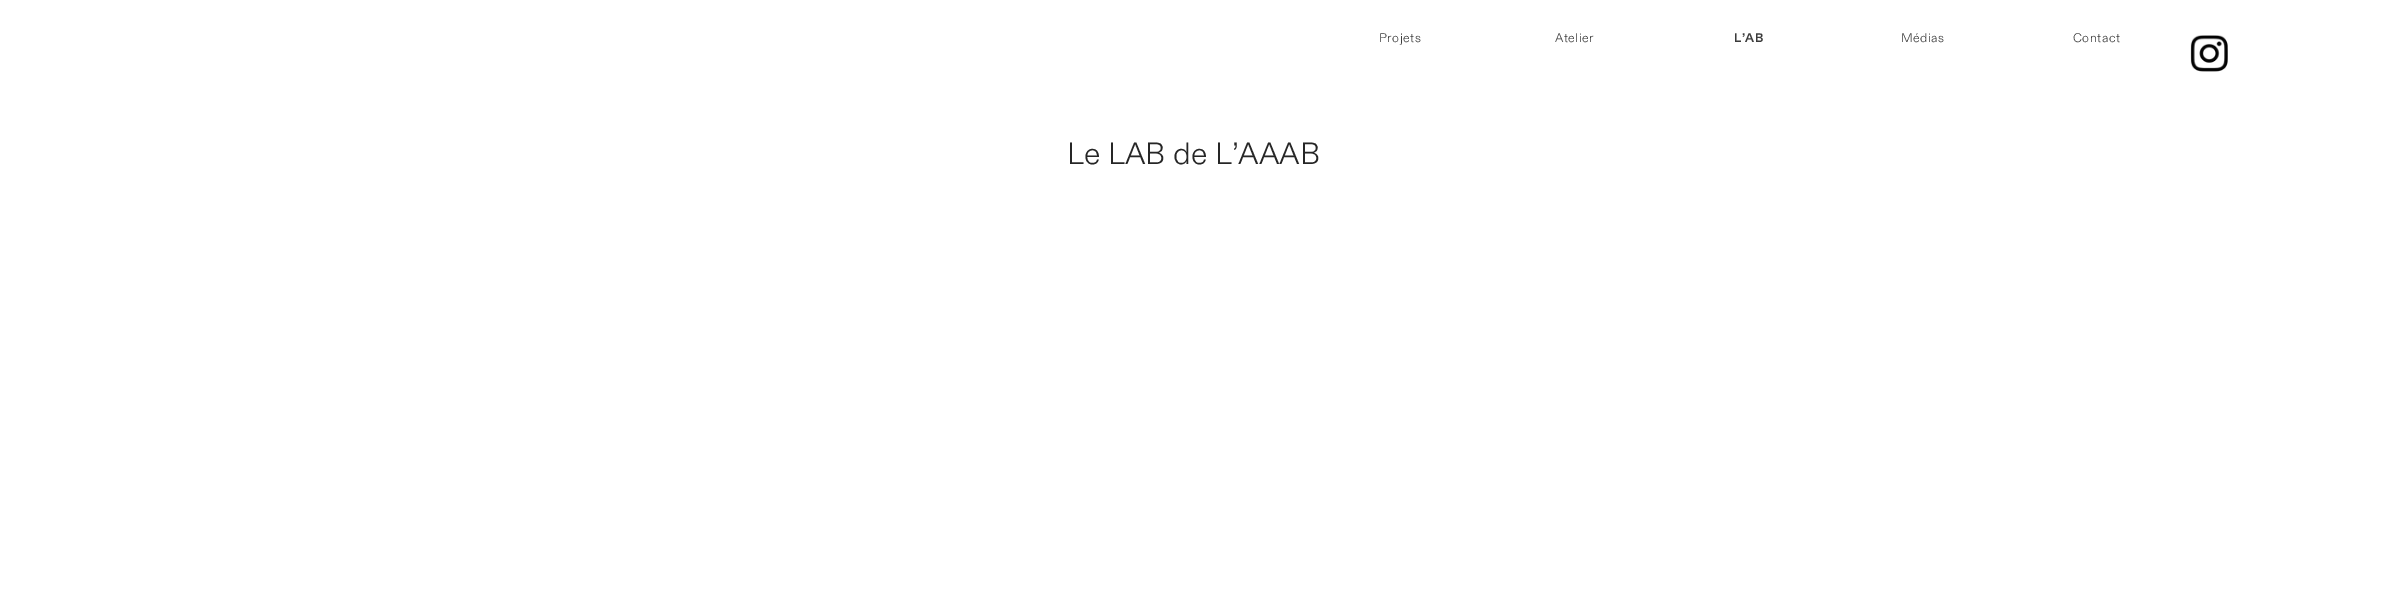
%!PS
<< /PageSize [2386 610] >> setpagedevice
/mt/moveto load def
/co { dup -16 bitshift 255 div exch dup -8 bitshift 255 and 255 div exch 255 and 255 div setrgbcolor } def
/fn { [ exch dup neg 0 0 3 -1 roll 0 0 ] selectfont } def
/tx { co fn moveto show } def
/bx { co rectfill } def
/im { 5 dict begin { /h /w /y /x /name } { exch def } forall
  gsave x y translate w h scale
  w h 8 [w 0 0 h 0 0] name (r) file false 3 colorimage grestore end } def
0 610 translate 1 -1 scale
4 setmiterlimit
0 0 2386 610 16#FFFFFF bx
(media/1.raw) 2190 35 38 37 im
/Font-Light 12.5 fn
16#3B3B3B co
1379 42 mt .5 0 (Projets) ashow
1555 42 mt .5 0 (Atelier) ashow
/Font-Bold 12.5 fn
1734 42 mt .5 0 (L’AB) ashow
/Font-Light 12.5 fn
1901 42 mt .5 0 (Médias) ashow
2073 42 mt .5 0 (Contact) ashow
(Le LAB de L’AAAB) 1067 164 /Font-Light 30.75 16#262626 tx
showpage
